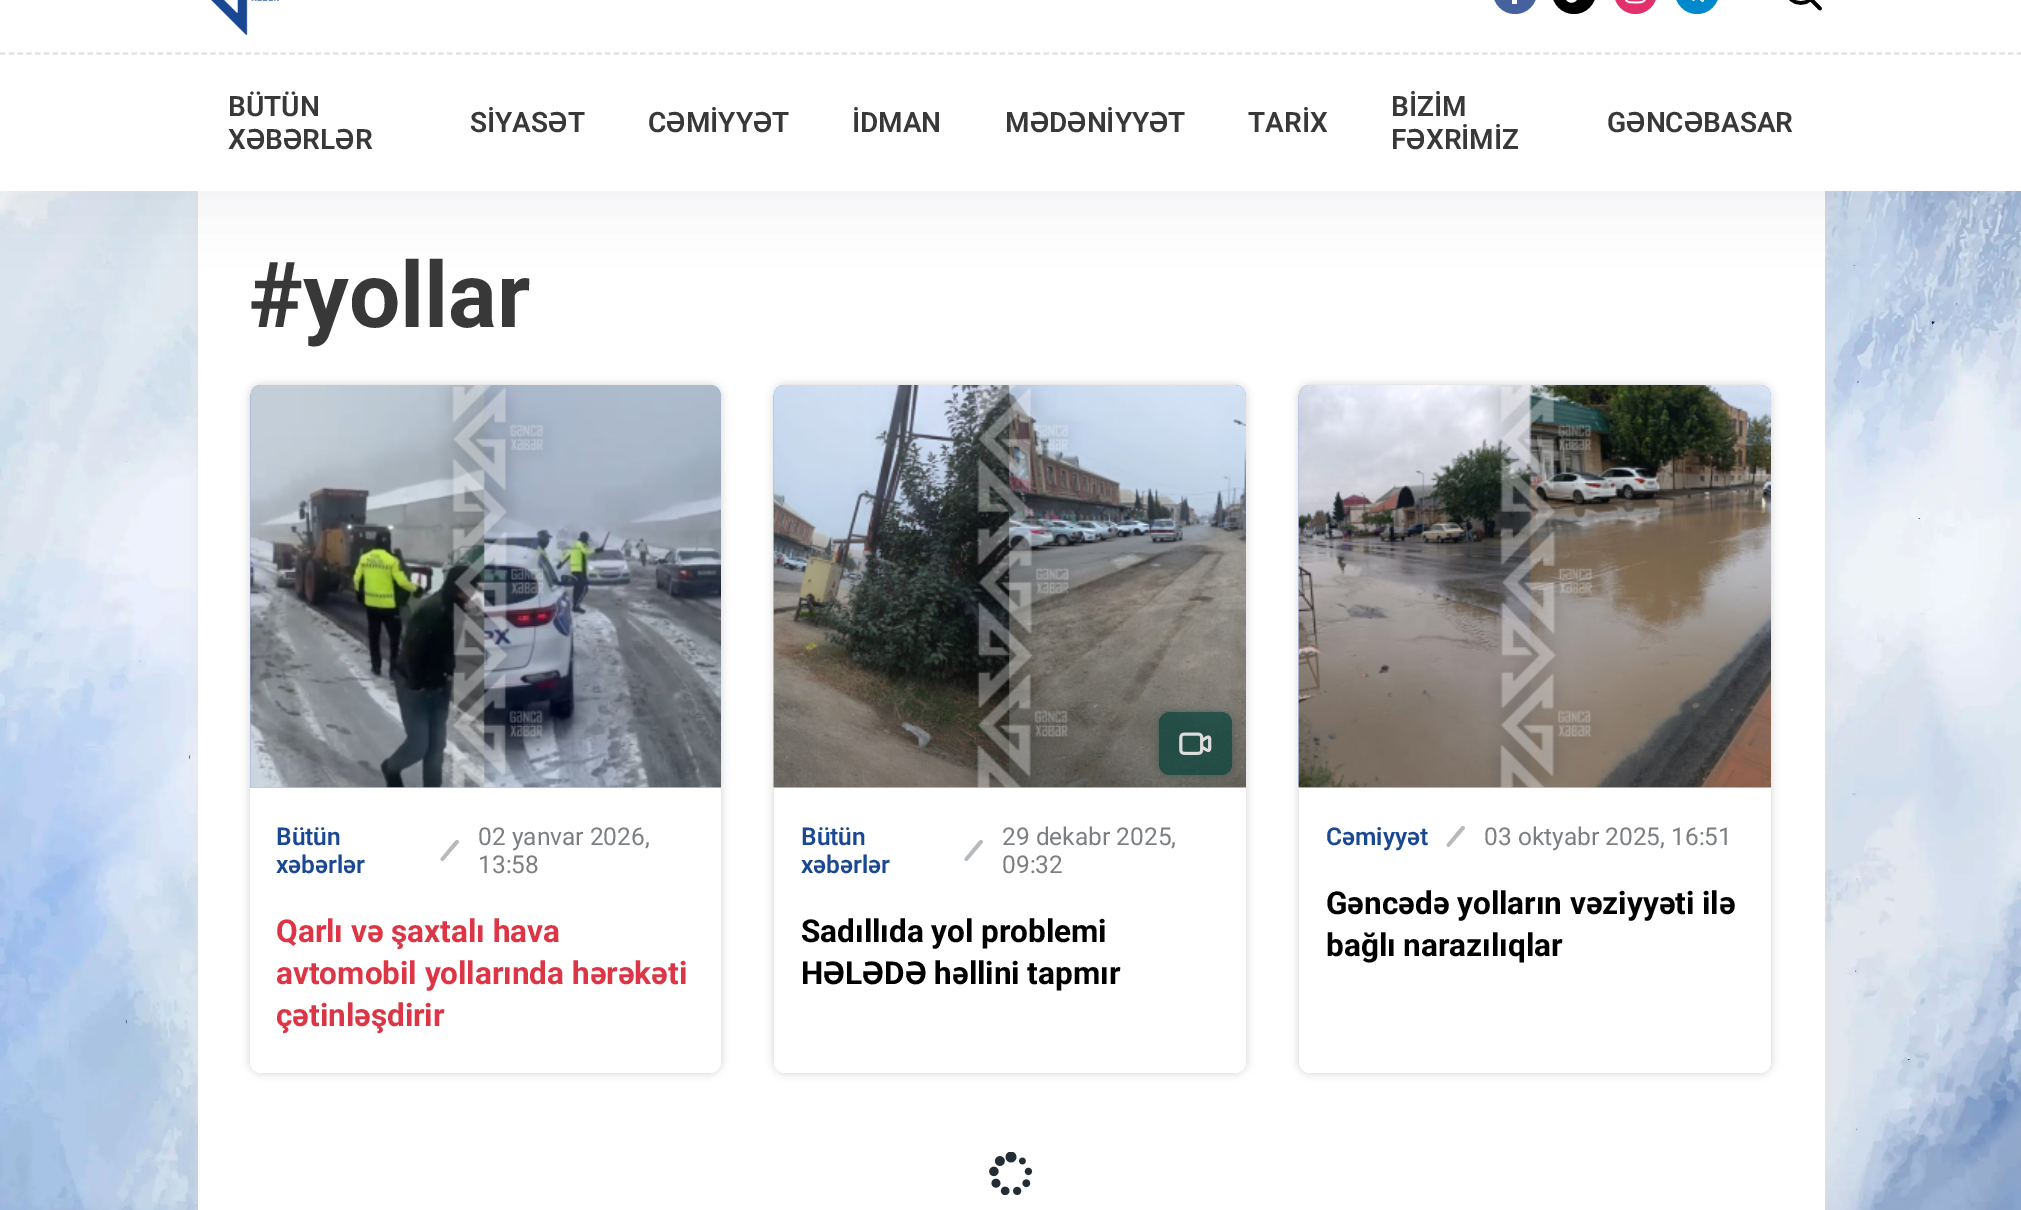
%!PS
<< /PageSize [2021 1210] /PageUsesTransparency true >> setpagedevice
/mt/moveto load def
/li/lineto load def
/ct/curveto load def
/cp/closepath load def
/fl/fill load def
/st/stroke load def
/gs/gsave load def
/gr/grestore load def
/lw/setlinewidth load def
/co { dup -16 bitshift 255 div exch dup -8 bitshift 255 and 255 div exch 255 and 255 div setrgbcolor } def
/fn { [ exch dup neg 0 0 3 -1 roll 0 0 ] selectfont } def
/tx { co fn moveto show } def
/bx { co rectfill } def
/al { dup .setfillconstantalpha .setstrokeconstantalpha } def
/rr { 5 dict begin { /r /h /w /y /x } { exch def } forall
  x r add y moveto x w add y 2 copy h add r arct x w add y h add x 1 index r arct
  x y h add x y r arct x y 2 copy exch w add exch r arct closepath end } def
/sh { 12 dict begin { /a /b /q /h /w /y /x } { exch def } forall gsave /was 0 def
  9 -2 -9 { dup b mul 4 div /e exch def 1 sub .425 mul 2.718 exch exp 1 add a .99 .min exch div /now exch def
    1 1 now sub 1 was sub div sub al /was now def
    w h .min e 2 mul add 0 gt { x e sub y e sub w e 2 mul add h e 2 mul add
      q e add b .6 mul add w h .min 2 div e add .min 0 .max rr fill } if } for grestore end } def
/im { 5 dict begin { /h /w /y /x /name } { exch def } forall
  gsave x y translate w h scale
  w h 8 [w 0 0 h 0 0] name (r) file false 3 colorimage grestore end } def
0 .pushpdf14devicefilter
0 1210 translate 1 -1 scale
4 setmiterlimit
0 0 2021 1210 16#FFFFFF bx
(media/1.raw) 0 191 2021 1019 im
16#DDDDDD co
198 191 1627 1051 0 10.5 .51 sh
198 191 1627 1019 16#FFFFFF bx
16#17222B co
0 -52 2021 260 0 35 .05 sh
0 0 2021 191 16#FFFFFF bx
16#DCDEDF co
1.8 lw
[5.25 3.52] 0 setdash
0 53.5 mt 2021 53.5 li st
16#45629F co
1493 -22 44 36 22 rr fl
1512 0 5 4 16#FFFFFF bx
16#000000 co
1552 -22 44 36 22 rr fl
(media/2.raw) 1566 0 11 3 im
16#E1306C co
1614 -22 43 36 21.5 rr fl
(media/3.raw) 1625 0 21 4 im
16#0088CC co
1675 -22 44 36 22 rr fl
(media/4.raw) 1692 0 13 2 im
16#000000 co
3.6 lw
1 setlinecap
1 setlinejoin
[] 0 setdash
1810.5 -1 mt 1820 8.5 li 1814.5 -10.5 mt 1814.5 7.5 1787 7.5 1787 -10.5 ct 1787 -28.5 1814.5 -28.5 1814.5 -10.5 ct cp st
(media/5.raw) 211 0 68 35 im
16#D2D1D1 co
250 385 471 688 11 4.5 1 sh
(media/6.raw) 250 385 472 403 im
(media/7.raw) 250 385 471 403 im
16#FFFFFF co
250 788 mt 721 788 li 721 1062 li 721 1068 716 1073 710 1073 ct 261 1073 li 255 1073 250 1068 250 1062 ct cp fl
16#B7BABD co
458 840.5 mt 459 841 459 842 458.5 843 ct 443.5 860.5 li 443 861 442 861 441 860.5 ct 440.5 860 440.5 859 441 858 ct 455.5 840.5 li 456.5 840 457.5 840 458 840.5 ct cp fl
16#D2D1D1 co
774 385 472 688 11 4.5 1 sh
(media/8.raw) 773 385 474 403 im
(media/9.raw) 773 385 473 403 im
16#FFFFFF co
774 788 mt 1246 788 li 1246 1062 li 1246 1068 1241 1073 1235 1073 ct 785 1073 li 779 1073 774 1068 774 1062 ct cp fl
gs
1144 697 mt 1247 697 li 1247 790 li 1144 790 li cp 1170 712 mt 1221 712 li 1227 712 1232 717 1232 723 ct 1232 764 li 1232 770 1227 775 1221 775 ct 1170 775 li 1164 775 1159 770 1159 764 ct 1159 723 li 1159 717 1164 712 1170 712 ct cp eoclip newpath
16#034037 co
1159 712 73 63 11 4.5 .4 sh
gr
0.7 al
16#034037 co
1159 712 73 63 11 rr fl
1 al
(media/10.raw) 1179 732 33 23 im
16#B7BABD co
982 840.5 mt 983 841 983 842 982.5 843 ct 967.5 860.5 li 967 861 966 861 965 860.5 ct 964.5 860 964.5 859 965 858 ct 979.5 840.5 li 980.5 840 981.5 840 982 840.5 ct cp fl
16#D2D1D1 co
1299 385 472 688 11 4.5 1 sh
(media/8.raw) 1298 385 474 403 im
(media/11.raw) 1298 385 473 403 im
16#FFFFFF co
1299 788 mt 1771 788 li 1771 1062 li 1771 1068 1766 1073 1760 1073 ct 1310 1073 li 1304 1073 1299 1068 1299 1062 ct cp fl
16#B7BABD co
1464 826.5 mt 1465 827 1465 828 1464.5 829 ct 1449.5 846.5 li 1449 847 1448 847 1447.5 846.5 ct 1446.5 846 1446.5 845 1447 844 ct 1461.5 826.5 li 1462.5 826 1463.5 826 1464 826.5 ct cp fl
(media/12.raw) 989 1152 44 43 im
(BÜTÜN) 228 116 /Roboto-SemiBold 28 16#383838 tx
(XƏBƏRLƏR) 228 149 /Roboto-SemiBold 28 16#383838 tx
(SİYASƏT) 470 132 /Roboto-SemiBold 28 16#383838 tx
(CƏMİYYƏT) 648 132 /Roboto-SemiBold 28 16#383838 tx
(İDMAN) 852 132 /Roboto-SemiBold 28 16#383838 tx
(MƏDƏNİYYƏT) 1005 132 /Roboto-SemiBold 28 16#383838 tx
(TARİX) 1248 132 /Roboto-SemiBold 28 16#383838 tx
(BİZİM) 1391 116 /Roboto-SemiBold 28 16#383838 tx
(FƏXRİMİZ) 1391 149 /Roboto-SemiBold 28 16#383838 tx
(GƏNCƏBASAR) 1607 132 /Roboto-SemiBold 28 16#383838 tx
(#yollar) 249 327 /Roboto-Bold 91 16#383838 tx
(Bütün) 276 845 /Roboto-SemiBold 24.5 16#1A4892 tx
(xəbərlər) 276 873 /Roboto-SemiBold 24.5 16#1A4892 tx
(02 yanvar 2026,) 478 845 /Roboto-Regular 24.5 16#7C7F81 tx
(13:58) 478 873 /Roboto-Regular 24.5 16#7C7F81 tx
(Qarlı və şaxtalı hava) 276 942 /Roboto-Bold 31.5 16#DC3545 tx
(avtomobil yollarında hərəkəti) 276 984 /Roboto-Bold 31.5 16#DC3545 tx
(çətinləşdirir) 276 1026 /Roboto-Bold 31.5 16#DC3545 tx
(Bütün) 801 845 /Roboto-SemiBold 24.5 16#1A4892 tx
(xəbərlər) 801 873 /Roboto-SemiBold 24.5 16#1A4892 tx
(29 dekabr 2025,) 1002 845 /Roboto-Regular 24.5 16#7C7F81 tx
(09:32) 1002 873 /Roboto-Regular 24.5 16#7C7F81 tx
(Sadıllıda yol problemi) 801 942 /Roboto-Bold 31.5 16#000000 tx
(HƏLƏDƏ həllini tapmır) 801 984 /Roboto-Bold 31.5 16#000000 tx
(Cəmiyyət) 1326 845 /Roboto-SemiBold 24.5 16#1A4892 tx
(03 oktyabr 2025, 16:51) 1484 845 /Roboto-Regular 24.5 16#7C7F81 tx
(Gəncədə yolların vəziyyəti ilə) 1326 914 /Roboto-Bold 31.5 16#000000 tx
(bağlı narazılıqlar) 1326 956 /Roboto-Bold 31.5 16#000000 tx
.poppdf14devicefilter showpage
